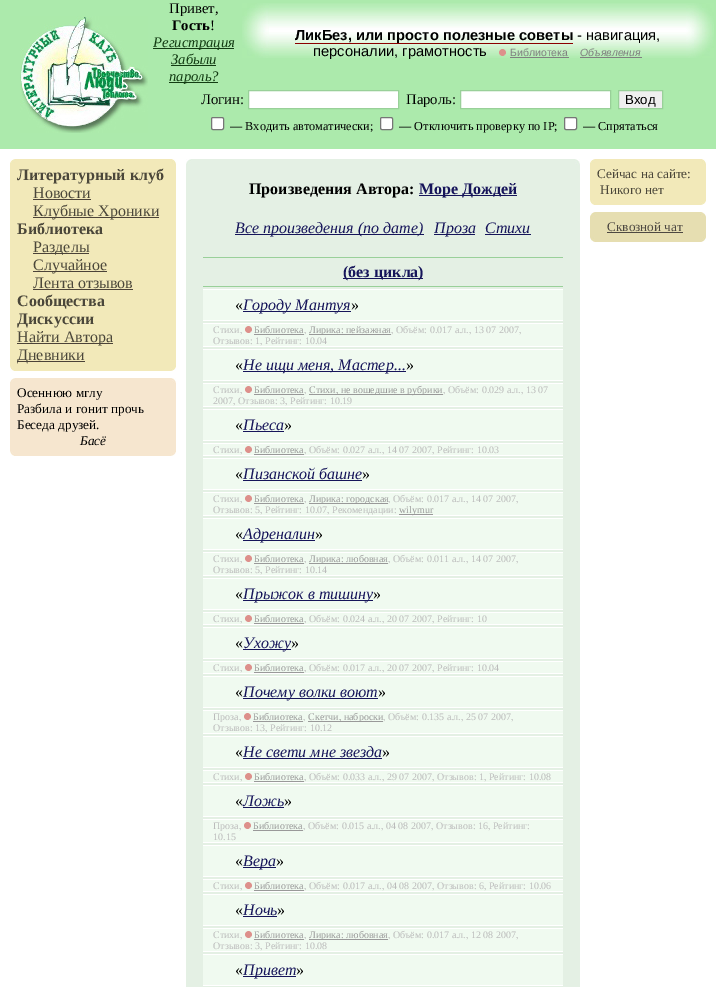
%!PS
<< /PageSize [716 987] >> setpagedevice
/mt/moveto load def
/li/lineto load def
/cp/closepath load def
/fl/fill load def
/st/stroke load def
/gs/gsave load def
/gr/grestore load def
/co { dup -16 bitshift 255 div exch dup -8 bitshift 255 and 255 div exch 255 and 255 div setrgbcolor } def
/fn { [ exch dup neg 0 0 3 -1 roll 0 0 ] selectfont } def
/tx { co fn moveto show } def
/bx { co rectfill } def
/rr { 5 dict begin { /r /h /w /y /x } { exch def } forall
  x r add y moveto x w add y 2 copy h add r arct x w add y h add x 1 index r arct
  x y h add x y r arct x y 2 copy exch w add exch r arct closepath end } def
/im { 5 dict begin { /h /w /y /x /name } { exch def } forall
  gsave x y translate w h scale
  w h 8 [w 0 0 h 0 0] name (r) file false 3 colorimage grestore end } def
0 987 translate 1 -1 scale
4 setmiterlimit
0 0 716 987 16#FFFFFF bx
0 0 716 149 16#ACEAAC bx
(media/1.raw) 20 16 128 117 im
153 48 81 1 16#133C13 bx
171 65 45 1 16#133C13 bx
169 82 49 1 16#133C13 bx
(media/2.raw) 242 3 27 55 im
(media/3.raw) 269 3 417 55 im
295 43 278 1 16#8B0000 bx
(media/4.raw) 499 49 7 7 im
510 57 59 1 16#808080 bx
580 57 62 1 16#808080 bx
(media/5.raw) 686 3 28 55 im
16#FFFFFF co
248.5 90.5 mt 398.5 90.5 li 398.5 108.5 li 248.5 108.5 li cp gs fl gr
16#99D099 co
st
16#FFFFFF co
460.5 90.5 mt 610.5 90.5 li 610.5 108.5 li 460.5 108.5 li cp gs fl gr
16#99D099 co
st
16#EFEFEF co
618.5 90.5 mt 662.5 90.5 li 662.5 108.5 li 618.5 108.5 li cp gs fl gr
16#99D099 co
st
16#FFFFFF co
211.5 117.5 12 12 1.5 rr gs fl gr
16#767676 co
st
16#FFFFFF co
380.5 117.5 12 12 1.5 rr gs fl gr
16#767676 co
st
16#FFFFFF co
564.5 117.5 12 12 1.5 rr gs fl gr
16#767676 co
st
10 159 166 212 16#F2E9B9 bx
(media/6.raw) 10 159 5 4 im
(media/7.raw) 172 159 4 5 im
33 199 58 1 16#4C4338 bx
33 217 126 1 16#4C4338 bx
33 253 56 1 16#4C4338 bx
33 271 74 1 16#4C4338 bx
33 289 100 1 16#4C4338 bx
17 343 96 1 16#4C4338 bx
17 361 68 1 16#4C4338 bx
(media/8.raw) 10 366 4 5 im
(media/9.raw) 171 367 5 4 im
10 378 166 78 16#F6E6CF bx
(media/10.raw) 10 378 5 4 im
(media/11.raw) 171 378 5 5 im
(media/12.raw) 10 451 4 5 im
(media/13.raw) 171 452 5 4 im
186 159 394 828 16#E4F0E4 bx
(media/14.raw) 186 159 5 5 im
(media/15.raw) 575 159 5 6 im
419 195 98 1 16#16155A bx
235 234 189 1 16#16155A bx
434 234 41 1 16#16155A bx
485 234 46 1 16#16155A bx
203 257 360 1 16#99D099 bx
203 286 360 1 16#99D099 bx
343 278 80 1 16#16155A bx
203 290 360 30 16#F0FAF0 bx
203 289 360 1 16#FFFFFF bx
203 320 360 1 16#FFFFFF bx
243 311 108 1 16#16155A bx
203 324 360 22 16#F0FAF0 bx
203 323 360 1 16#FFFFFF bx
203 346 360 1 16#FFFFFF bx
(media/16.raw) 245 326 7 7 im
254 334 50 1 16#999999 bx
309 334 82 1 16#999999 bx
203 350 360 30 16#F0FAF0 bx
203 349 360 1 16#FFFFFF bx
203 380 360 1 16#FFFFFF bx
243 371 163 1 16#16155A bx
203 384 360 22 16#F0FAF0 bx
203 383 360 1 16#FFFFFF bx
203 406 360 1 16#FFFFFF bx
(media/16.raw) 245 386 7 7 im
254 394 50 1 16#999999 bx
309 394 134 1 16#999999 bx
203 410 360 30 16#F0FAF0 bx
203 409 360 1 16#FFFFFF bx
203 440 360 1 16#FFFFFF bx
243 431 41 1 16#16155A bx
203 444 360 11 16#F0FAF0 bx
203 443 360 1 16#FFFFFF bx
203 455 360 1 16#FFFFFF bx
(media/16.raw) 245 446 7 7 im
254 454 50 1 16#999999 bx
203 459 360 30 16#F0FAF0 bx
203 458 360 1 16#FFFFFF bx
203 489 360 1 16#FFFFFF bx
243 480 119 1 16#16155A bx
203 493 360 22 16#F0FAF0 bx
203 492 360 1 16#FFFFFF bx
203 515 360 1 16#FFFFFF bx
(media/16.raw) 245 495 7 7 im
254 503 50 1 16#999999 bx
309 503 79 1 16#999999 bx
399 514 34 1 16#999999 bx
203 519 360 30 16#F0FAF0 bx
203 518 360 1 16#FFFFFF bx
203 549 360 1 16#FFFFFF bx
243 540 72 1 16#16155A bx
203 553 360 22 16#F0FAF0 bx
203 552 360 1 16#FFFFFF bx
203 575 360 1 16#FFFFFF bx
(media/16.raw) 245 555 7 7 im
254 563 50 1 16#999999 bx
309 563 79 1 16#999999 bx
203 579 360 30 16#F0FAF0 bx
203 578 360 1 16#FFFFFF bx
203 609 360 1 16#FFFFFF bx
243 600 130 1 16#16155A bx
203 613 360 11 16#F0FAF0 bx
203 612 360 1 16#FFFFFF bx
203 624 360 1 16#FFFFFF bx
(media/16.raw) 245 615 7 7 im
254 623 50 1 16#999999 bx
203 628 360 30 16#F0FAF0 bx
203 627 360 1 16#FFFFFF bx
203 658 360 1 16#FFFFFF bx
243 649 48 1 16#16155A bx
203 662 360 11 16#F0FAF0 bx
203 661 360 1 16#FFFFFF bx
203 673 360 1 16#FFFFFF bx
(media/16.raw) 245 664 7 7 im
254 672 50 1 16#999999 bx
203 677 360 30 16#F0FAF0 bx
203 676 360 1 16#FFFFFF bx
203 707 360 1 16#FFFFFF bx
243 698 135 1 16#16155A bx
203 711 360 22 16#F0FAF0 bx
203 710 360 1 16#FFFFFF bx
203 733 360 1 16#FFFFFF bx
(media/16.raw) 244 713 7 7 im
253 721 50 1 16#999999 bx
308 721 75 1 16#999999 bx
203 737 360 30 16#F0FAF0 bx
203 736 360 1 16#FFFFFF bx
203 767 360 1 16#FFFFFF bx
243 758 139 1 16#16155A bx
203 771 360 11 16#F0FAF0 bx
203 770 360 1 16#FFFFFF bx
203 782 360 1 16#FFFFFF bx
(media/16.raw) 245 773 7 7 im
254 781 50 1 16#999999 bx
203 786 360 30 16#F0FAF0 bx
203 785 360 1 16#FFFFFF bx
203 816 360 1 16#FFFFFF bx
243 807 41 1 16#16155A bx
203 820 360 22 16#F0FAF0 bx
203 819 360 1 16#FFFFFF bx
203 842 360 1 16#FFFFFF bx
(media/16.raw) 244 822 7 7 im
253 830 50 1 16#999999 bx
203 846 360 30 16#F0FAF0 bx
203 845 360 1 16#FFFFFF bx
203 876 360 1 16#FFFFFF bx
243 867 33 1 16#16155A bx
203 880 360 11 16#F0FAF0 bx
203 879 360 1 16#FFFFFF bx
203 891 360 1 16#FFFFFF bx
(media/16.raw) 245 882 7 7 im
254 890 50 1 16#999999 bx
203 895 360 30 16#F0FAF0 bx
203 894 360 1 16#FFFFFF bx
203 925 360 1 16#FFFFFF bx
243 916 34 1 16#16155A bx
203 929 360 22 16#F0FAF0 bx
203 928 360 1 16#FFFFFF bx
203 951 360 1 16#FFFFFF bx
(media/16.raw) 245 931 7 7 im
254 939 50 1 16#999999 bx
309 939 79 1 16#999999 bx
203 955 360 30 16#F0FAF0 bx
203 954 360 1 16#FFFFFF bx
203 985 360 1 16#FFFFFF bx
243 976 53 1 16#16155A bx
590 159 116 46 16#F2E9B9 bx
(media/6.raw) 590 159 5 4 im
(media/7.raw) 702 159 4 5 im
(media/8.raw) 590 200 4 5 im
(media/9.raw) 701 201 5 4 im
590 212 116 30 16#E6DEB1 bx
(media/17.raw) 590 212 6 5 im
(media/18.raw) 700 212 6 5 im
607 232 76 1 16#4D4841 bx
(media/19.raw) 590 237 5 5 im
(media/20.raw) 701 237 5 5 im
(Привет,) 169 13 /LiberationSerif-Regular 14.7 16#000000 tx
(Гость) 172 30 /LiberationSerif-Bold 14.7 16#000000 tx
(!) 210 30 /LiberationSerif-Regular 14.7 16#000000 tx
(Регистрация) 153 47 /LiberationSerif-Italic 14.7 16#133C13 tx
(Забыли) 171 64 /LiberationSerif-Italic 14.7 16#133C13 tx
(пароль?) 169 81 /LiberationSerif-Italic 14.7 16#133C13 tx
(ЛикБез, или просто полезные советы) 295 40 /LiberationSans-Bold 14.7 16#000000 tx
(- навигация,) 577 40 /LiberationSans-Regular 14.7 16#000000 tx
(персоналии, грамотность) 313 56 /LiberationSans-Regular 14.7 16#000000 tx
(Библиотека) 510 56 /LiberationSans-Regular 10.5 16#808080 tx
(Объявления) 580 56 /LiberationSans-Italic 10.5 16#808080 tx
(Логин:) 201 104 /LiberationSerif-Regular 14.7 16#000000 tx
(Пароль:) 406 104 /LiberationSerif-Regular 14.7 16#000000 tx
(Вход) 625 104 /LiberationSans-Regular 13.25 16#000000 tx
(— Входить автоматически;) 230 130 /LiberationSerif-Regular 12.25 16#000000 tx
(— Отключить проверку по IP;) 399 130 /LiberationSerif-Regular 12.25 16#000000 tx
(— Спрятаться) 583 130 /LiberationSerif-Regular 12.25 16#000000 tx
(Литературный клуб) 17 180 /LiberationSerif-Bold 16 16#4B473A tx
(Новости) 33 198 /LiberationSerif-Regular 16 16#4B473A tx
(Клубные Хроники) 33 216 /LiberationSerif-Regular 16 16#4B473A tx
(Библиотека) 17 234 /LiberationSerif-Bold 16 16#4B473A tx
(Разделы) 33 252 /LiberationSerif-Regular 16 16#4B473A tx
(Случайное) 33 270 /LiberationSerif-Regular 16 16#4B473A tx
(Лента отзывов) 33 288 /LiberationSerif-Regular 16 16#4B473A tx
(Сообщества) 17 306 /LiberationSerif-Bold 16 16#4B473A tx
(Дискуссии) 17 324 /LiberationSerif-Bold 16 16#4B473A tx
(Найти Автора) 17 342 /LiberationSerif-Regular 16 16#4B473A tx
(Дневники) 17 360 /LiberationSerif-Regular 16 16#4B473A tx
(Осеннюю мглу) 17 397 /LiberationSerif-Regular 13.25 16#000000 tx
(Разбила и гонит прочь) 17 413 /LiberationSerif-Regular 13.25 16#000000 tx
(Беседа друзей.) 17 429 /LiberationSerif-Regular 13.25 16#000000 tx
(Басё) 80 445 /LiberationSerif-Italic 13.25 16#000000 tx
(Произведения Автора:) 249 194 /LiberationSerif-Bold 16 16#000000 tx
(Море Дождей) 419 194 /LiberationSerif-Bold 16 16#16155A tx
(Все произведения \(по дате\)) 235 233 /LiberationSerif-Italic 16 16#16155A tx
(Проза) 434 233 /LiberationSerif-Italic 16 16#16155A tx
(Стихи) 485 233 /LiberationSerif-Italic 16 16#16155A tx
(\(без цикла\)) 343 277 /LiberationSerif-Bold 16 16#16155A tx
(«) 235 310 /LiberationSerif-Regular 16 16#000000 tx
(Городу Мантуя) 243 310 /LiberationSerif-Italic 16 16#16155A tx
(») 351 310 /LiberationSerif-Regular 16 16#000000 tx
(Стихи,) 213 333 /LiberationSerif-Regular 10 16#BBBBBB tx
(Библиотека) 254 333 /LiberationSerif-Regular 10 16#999999 tx
(,) 304 333 /LiberationSerif-Regular 10 16#BBBBBB tx
(Лирика: пейзажная) 309 333 /LiberationSerif-Regular 10 16#999999 tx
(, Объём: 0.017 а.л., 13 07 2007,) 391 333 /LiberationSerif-Regular 10 16#BBBBBB tx
(Отзывов: 1, Рейтинг: 10.04) 213 344 /LiberationSerif-Regular 10 16#BBBBBB tx
(«) 235 370 /LiberationSerif-Regular 16 16#000000 tx
(Не ищи меня, Мастер...) 243 370 /LiberationSerif-Italic 16 16#16155A tx
(») 406 370 /LiberationSerif-Regular 16 16#000000 tx
(Стихи,) 213 393 /LiberationSerif-Regular 10 16#BBBBBB tx
(Библиотека) 254 393 /LiberationSerif-Regular 10 16#999999 tx
(Стихи, не вошедшие в рубрики) 309 393 /LiberationSerif-Regular 10 16#999999 tx
(, Объём: 0.029 а.л., 13 07) 443 393 /LiberationSerif-Regular 10 16#BBBBBB tx
(,) 304 393 /LiberationSerif-Regular 10 16#BBBBBB tx
(2007, Отзывов: 3, Рейтинг: 10.19) 213 404 /LiberationSerif-Regular 10 16#BBBBBB tx
(«) 235 430 /LiberationSerif-Regular 16 16#000000 tx
(Пьеса) 243 430 /LiberationSerif-Italic 16 16#16155A tx
(») 284 430 /LiberationSerif-Regular 16 16#000000 tx
(Стихи,) 213 453 /LiberationSerif-Regular 10 16#BBBBBB tx
(Библиотека) 254 453 /LiberationSerif-Regular 10 16#999999 tx
(, Объём: 0.027 а.л., 14 07 2007, Рейтинг: 10.03) 304 453 /LiberationSerif-Regular 10 16#BBBBBB tx
(«) 235 479 /LiberationSerif-Regular 16 16#000000 tx
(Пизанской башне) 243 479 /LiberationSerif-Italic 16 16#16155A tx
(») 362 479 /LiberationSerif-Regular 16 16#000000 tx
(Стихи,) 213 502 /LiberationSerif-Regular 10 16#BBBBBB tx
(Библиотека) 254 502 /LiberationSerif-Regular 10 16#999999 tx
(,) 304 502 /LiberationSerif-Regular 10 16#BBBBBB tx
(Лирика: городская) 309 502 /LiberationSerif-Regular 10 16#999999 tx
(, Объём: 0.017 а.л., 14 07 2007,) 388 502 /LiberationSerif-Regular 10 16#BBBBBB tx
(Отзывов: 5, Рейтинг: 10.07, Рекомендации:) 213 513 /LiberationSerif-Regular 10 16#BBBBBB tx
(wilymur) 399 513 /LiberationSerif-Regular 10 16#999999 tx
(«) 235 539 /LiberationSerif-Regular 16 16#000000 tx
(Адреналин) 243 539 /LiberationSerif-Italic 16 16#16155A tx
(») 315 539 /LiberationSerif-Regular 16 16#000000 tx
(Стихи,) 213 562 /LiberationSerif-Regular 10 16#BBBBBB tx
(Библиотека) 254 562 /LiberationSerif-Regular 10 16#999999 tx
(Лирика: любовная) 309 562 /LiberationSerif-Regular 10 16#999999 tx
(, Объём: 0.011 а.л., 14 07 2007,) 388 562 /LiberationSerif-Regular 10 16#BBBBBB tx
(,) 304 562 /LiberationSerif-Regular 10 16#BBBBBB tx
(Отзывов: 5, Рейтинг: 10.14) 213 573 /LiberationSerif-Regular 10 16#BBBBBB tx
(«) 235 599 /LiberationSerif-Regular 16 16#000000 tx
(Прыжок в тишину) 243 599 /LiberationSerif-Italic 16 16#16155A tx
(») 373 599 /LiberationSerif-Regular 16 16#000000 tx
(Стихи,) 213 622 /LiberationSerif-Regular 10 16#BBBBBB tx
(Библиотека) 254 622 /LiberationSerif-Regular 10 16#999999 tx
(, Объём: 0.024 а.л., 20 07 2007, Рейтинг: 10) 304 622 /LiberationSerif-Regular 10 16#BBBBBB tx
(«) 235 648 /LiberationSerif-Regular 16 16#000000 tx
(Ухожу) 243 648 /LiberationSerif-Italic 16 16#16155A tx
(») 291 648 /LiberationSerif-Regular 16 16#000000 tx
(Стихи,) 213 671 /LiberationSerif-Regular 10 16#BBBBBB tx
(Библиотека) 254 671 /LiberationSerif-Regular 10 16#999999 tx
(, Объём: 0.017 а.л., 20 07 2007, Рейтинг: 10.04) 304 671 /LiberationSerif-Regular 10 16#BBBBBB tx
(«) 235 697 /LiberationSerif-Regular 16 16#000000 tx
(Почему волки воют) 243 697 /LiberationSerif-Italic 16 16#16155A tx
(») 378 697 /LiberationSerif-Regular 16 16#000000 tx
(Проза,) 213 720 /LiberationSerif-Regular 10 16#BBBBBB tx
(Библиотека) 253 720 /LiberationSerif-Regular 10 16#999999 tx
(Скетчи, наброски) 308 720 /LiberationSerif-Regular 10 16#999999 tx
(, Объём: 0.135 а.л., 25 07 2007,) 383 720 /LiberationSerif-Regular 10 16#BBBBBB tx
(,) 303 720 /LiberationSerif-Regular 10 16#BBBBBB tx
(Отзывов: 13, Рейтинг: 10.12) 213 731 /LiberationSerif-Regular 10 16#BBBBBB tx
(«) 235 757 /LiberationSerif-Regular 16 16#000000 tx
(Не свети мне звезда) 243 757 /LiberationSerif-Italic 16 16#16155A tx
(») 382 757 /LiberationSerif-Regular 16 16#000000 tx
(Стихи,) 213 780 /LiberationSerif-Regular 10 16#BBBBBB tx
(Библиотека) 254 780 /LiberationSerif-Regular 10 16#999999 tx
(, Объём: 0.033 а.л., 29 07 2007, Отзывов: 1, Рейтинг: 10.08) 304 780 /LiberationSerif-Regular 10 16#BBBBBB tx
(«) 235 806 /LiberationSerif-Regular 16 16#000000 tx
(Ложь) 243 806 /LiberationSerif-Italic 16 16#16155A tx
(») 284 806 /LiberationSerif-Regular 16 16#000000 tx
(Проза,) 213 829 /LiberationSerif-Regular 10 16#BBBBBB tx
(Библиотека) 253 829 /LiberationSerif-Regular 10 16#999999 tx
(, Объём: 0.015 а.л., 04 08 2007, Отзывов: 16, Рейтинг:) 303 829 /LiberationSerif-Regular 10 16#BBBBBB tx
(10.15) 213 840 /LiberationSerif-Regular 10 16#BBBBBB tx
(«) 235 866 /LiberationSerif-Regular 16 16#000000 tx
(Вера) 243 866 /LiberationSerif-Italic 16 16#16155A tx
(») 276 866 /LiberationSerif-Regular 16 16#000000 tx
(Стихи,) 213 889 /LiberationSerif-Regular 10 16#BBBBBB tx
(Библиотека) 254 889 /LiberationSerif-Regular 10 16#999999 tx
(, Объём: 0.017 а.л., 04 08 2007, Отзывов: 6, Рейтинг: 10.06) 304 889 /LiberationSerif-Regular 10 16#BBBBBB tx
(«) 235 915 /LiberationSerif-Regular 16 16#000000 tx
(Ночь) 243 915 /LiberationSerif-Italic 16 16#16155A tx
(») 277 915 /LiberationSerif-Regular 16 16#000000 tx
(Стихи,) 213 938 /LiberationSerif-Regular 10 16#BBBBBB tx
(Библиотека) 254 938 /LiberationSerif-Regular 10 16#999999 tx
(Лирика: любовная) 309 938 /LiberationSerif-Regular 10 16#999999 tx
(, Объём: 0.017 а.л., 12 08 2007,) 388 938 /LiberationSerif-Regular 10 16#BBBBBB tx
(,) 304 938 /LiberationSerif-Regular 10 16#BBBBBB tx
(Отзывов: 3, Рейтинг: 10.08) 213 949 /LiberationSerif-Regular 10 16#BBBBBB tx
(«) 235 975 /LiberationSerif-Regular 16 16#000000 tx
(Привет) 243 975 /LiberationSerif-Italic 16 16#16155A tx
(») 296 975 /LiberationSerif-Regular 16 16#000000 tx
(Сейчас на сайте:) 597 178 /LiberationSerif-Regular 13.25 16#4B473A tx
(Никого нет) 600 194 /LiberationSerif-Regular 13.25 16#4B473A tx
(Сквозной чат) 607 231 /LiberationSerif-Regular 13.25 16#4D4841 tx
showpage
